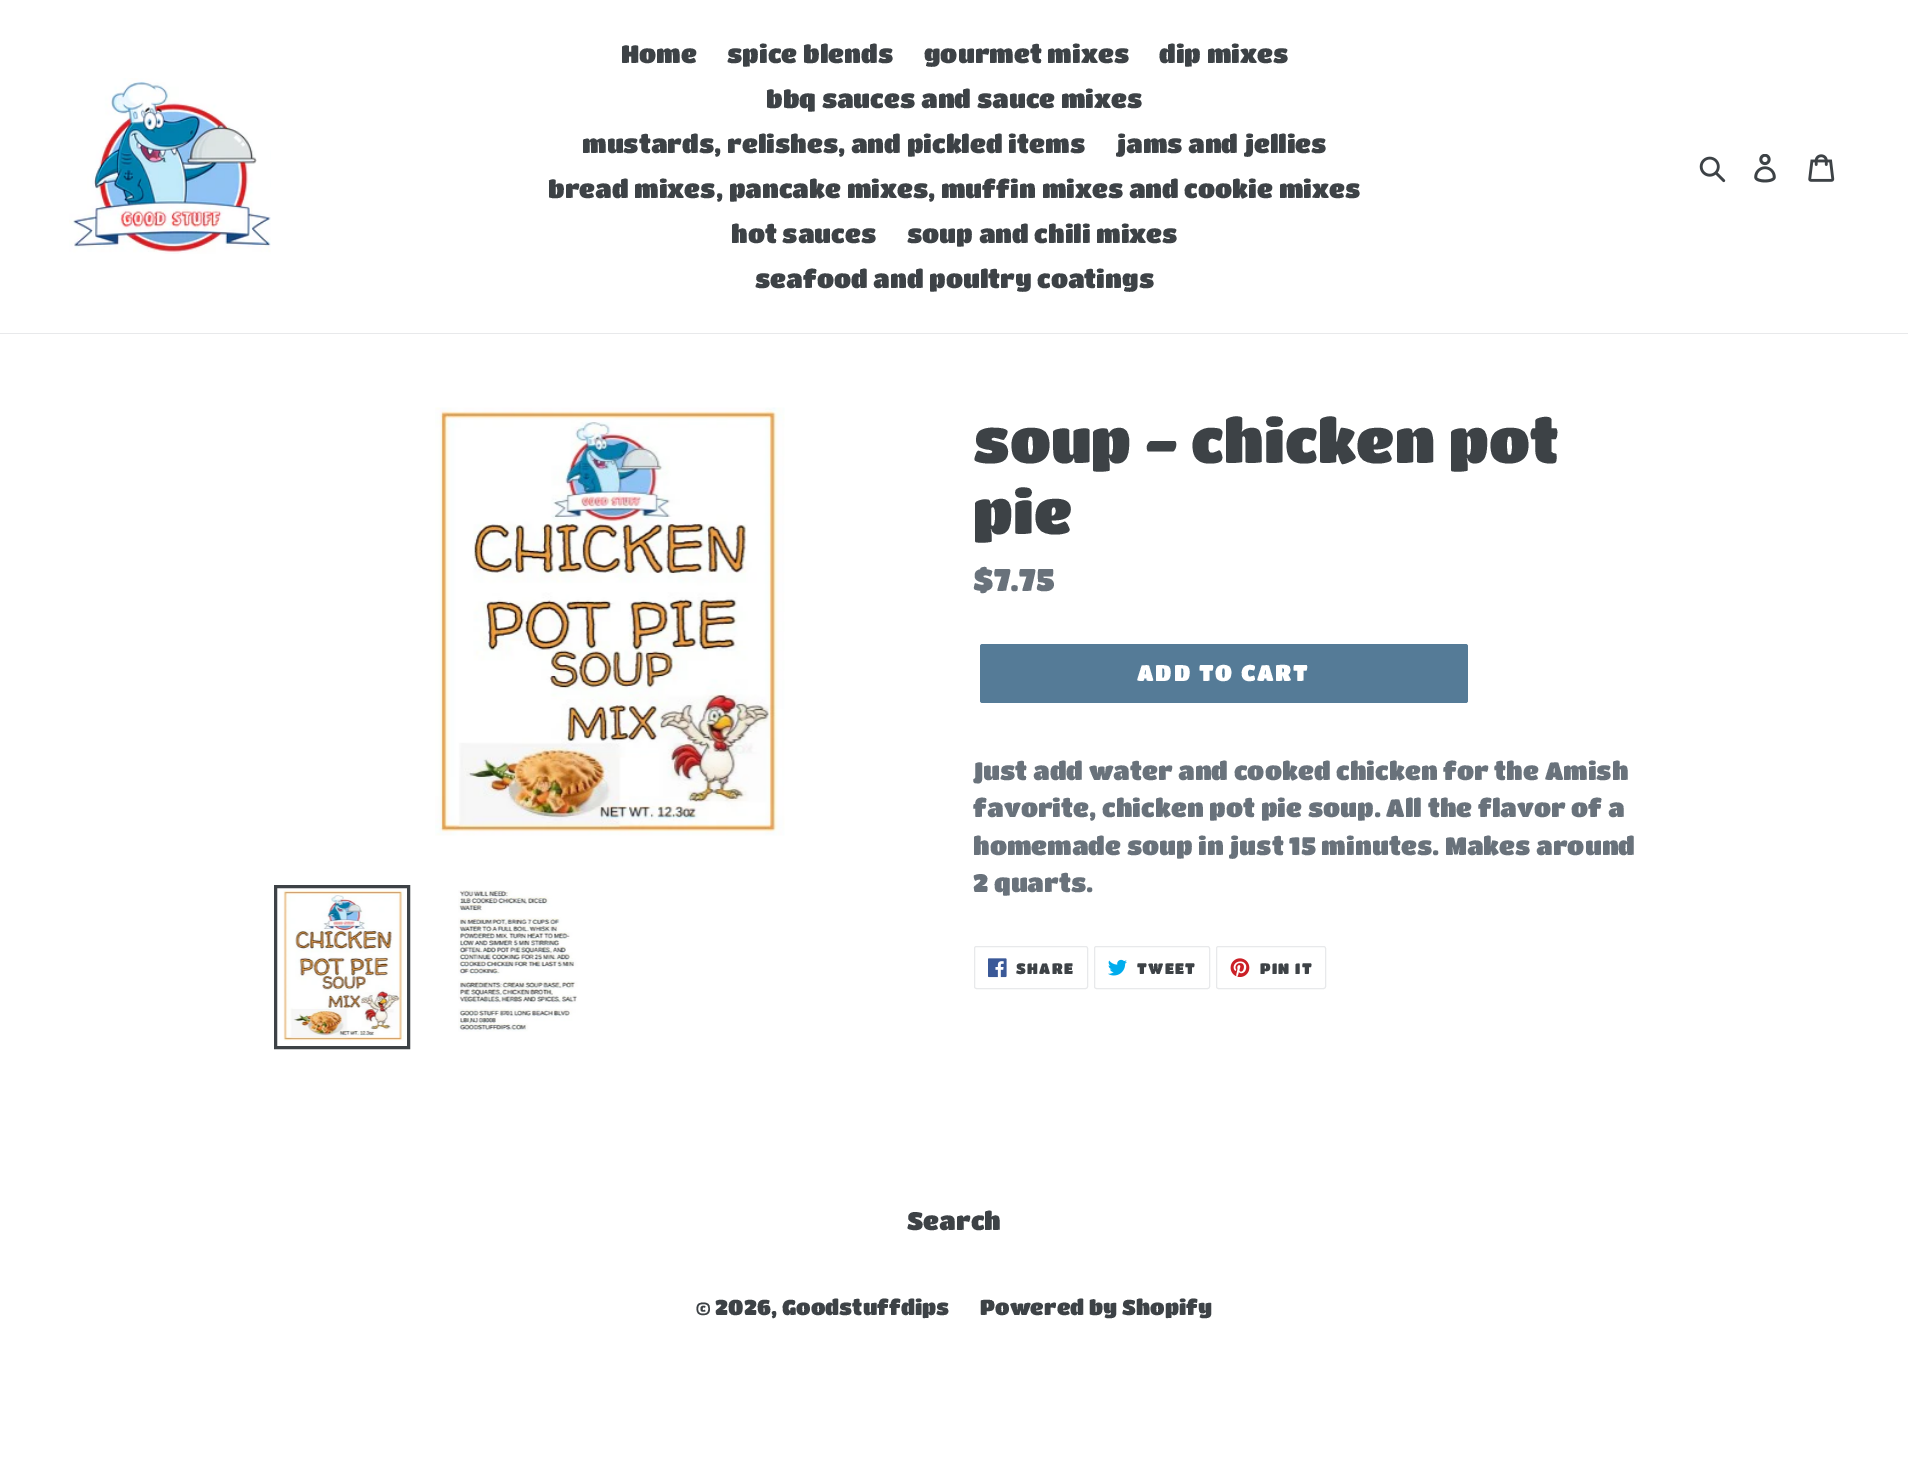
%!PS
<< /PageSize [1908 1469] >> setpagedevice
/mt/moveto load def
/fl/fill load def
/st/stroke load def
/lw/setlinewidth load def
/co { dup -16 bitshift 255 div exch dup -8 bitshift 255 and 255 div exch 255 and 255 div setrgbcolor } def
/fn { [ exch dup neg 0 0 3 -1 roll 0 0 ] selectfont } def
/tx { co fn moveto show } def
/bx { co rectfill } def
/rr { 5 dict begin { /r /h /w /y /x } { exch def } forall
  x r add y moveto x w add y 2 copy h add r arct x w add y h add x 1 index r arct
  x y h add x y r arct x y 2 copy exch w add exch r arct closepath end } def
/im { 5 dict begin { /h /w /y /x /name } { exch def } forall
  gsave x y translate w h scale
  w h 8 [w 0 0 h 0 0] name (r) file false 3 colorimage grestore end } def
0 1469 translate 1 -1 scale
4 setmiterlimit
0 0 1908 1469 16#FFFFFF bx
0 333 1908 1 16#E8E9EB bx
(media/1.raw) 69 78 202 176 im
(media/2.raw) 1699 156 27 27 im
(media/3.raw) 1754 154 22 29 im
(media/4.raw) 1808 154 27 28 im
(media/5.raw) 435 407 350 429 im
16#3D4246 co
3 lw
275.5 886.5 133 161 rectstroke
(media/6.raw) 283 890 121 151 im
(media/7.raw) 458 890 120 142 im
16#557B97 co
980 644 488 59 2.5 rr fl
16#E8E9EB co
1 lw
974.5 946.5 113 42 2 rr st
(media/8.raw) 988 958 19 20 im
1094.5 946.5 115 42 2 rr st
(media/9.raw) 1108 959 19 17 im
1216.5 946.5 109 42 2 rr st
(media/10.raw) 1230 958 20 19 im
(Home) 621 63 /TitanOne-Regular 25 16#3D4246 tx
(spice blends) 727 63 /TitanOne-Regular 25 16#3D4246 tx
(gourmet mixes) 924 63 /TitanOne-Regular 25 16#3D4246 tx
(dip mixes) 1159 63 /TitanOne-Regular 25 16#3D4246 tx
(bbq sauces and sauce mixes) 766 108 /TitanOne-Regular 25 16#3D4246 tx
(mustards, relishes, and pickled items) 582 153 /TitanOne-Regular 25 16#3D4246 tx
(jams and jellies) 1116 153 /TitanOne-Regular 25 16#3D4246 tx
(bread mixes, pancake mixes, muffin mixes and cookie mixes) 548 198 /TitanOne-Regular 25 16#3D4246 tx
(hot sauces) 731 243 /TitanOne-Regular 25 16#3D4246 tx
(soup and chili mixes) 907 243 /TitanOne-Regular 25 16#3D4246 tx
(seafood and poultry coatings) 755 288 /TitanOne-Regular 25 16#3D4246 tx
(soup - chicken pot) 973 463 /TitanOne-Regular 60 16#3D4246 tx
(pie) 973 534 /TitanOne-Regular 60 16#3D4246 tx
($7.75) 973 591 /TitanOne-Regular 31 16#69727B tx
/TitanOne-Regular 22.5 fn
16#FFFFFF co
1137 681 mt 1.75 0 (ADD TO CART) ashow
(Just add water and cooked chicken for the Amish) 973 780 /TitanOne-Regular 25 16#69727B tx
(favorite, chicken pot pie soup. All the flavor of a) 973 817 /TitanOne-Regular 25 16#69727B tx
(homemade soup in just 15 minutes. Makes around) 973 855 /TitanOne-Regular 25 16#69727B tx
(2 quarts.) 973 892 /TitanOne-Regular 25 16#69727B tx
/TitanOne-Regular 15 fn
16#3D4246 co
1016 974 mt 1.25 0 (SHARE) ashow
1137 974 mt 1.25 0 (TWEET) ashow
1260 974 mt 1.25 0 (PIN IT) ashow
(Search) 907 1230 /TitanOne-Regular 25 16#3D4246 tx
(© 2026, Goodstuffdips) 696 1315 /TitanOne-Regular 21.25 16#3D4246 tx
(Powered by Shopify) 980 1315 /TitanOne-Regular 21.25 16#3D4246 tx
showpage
